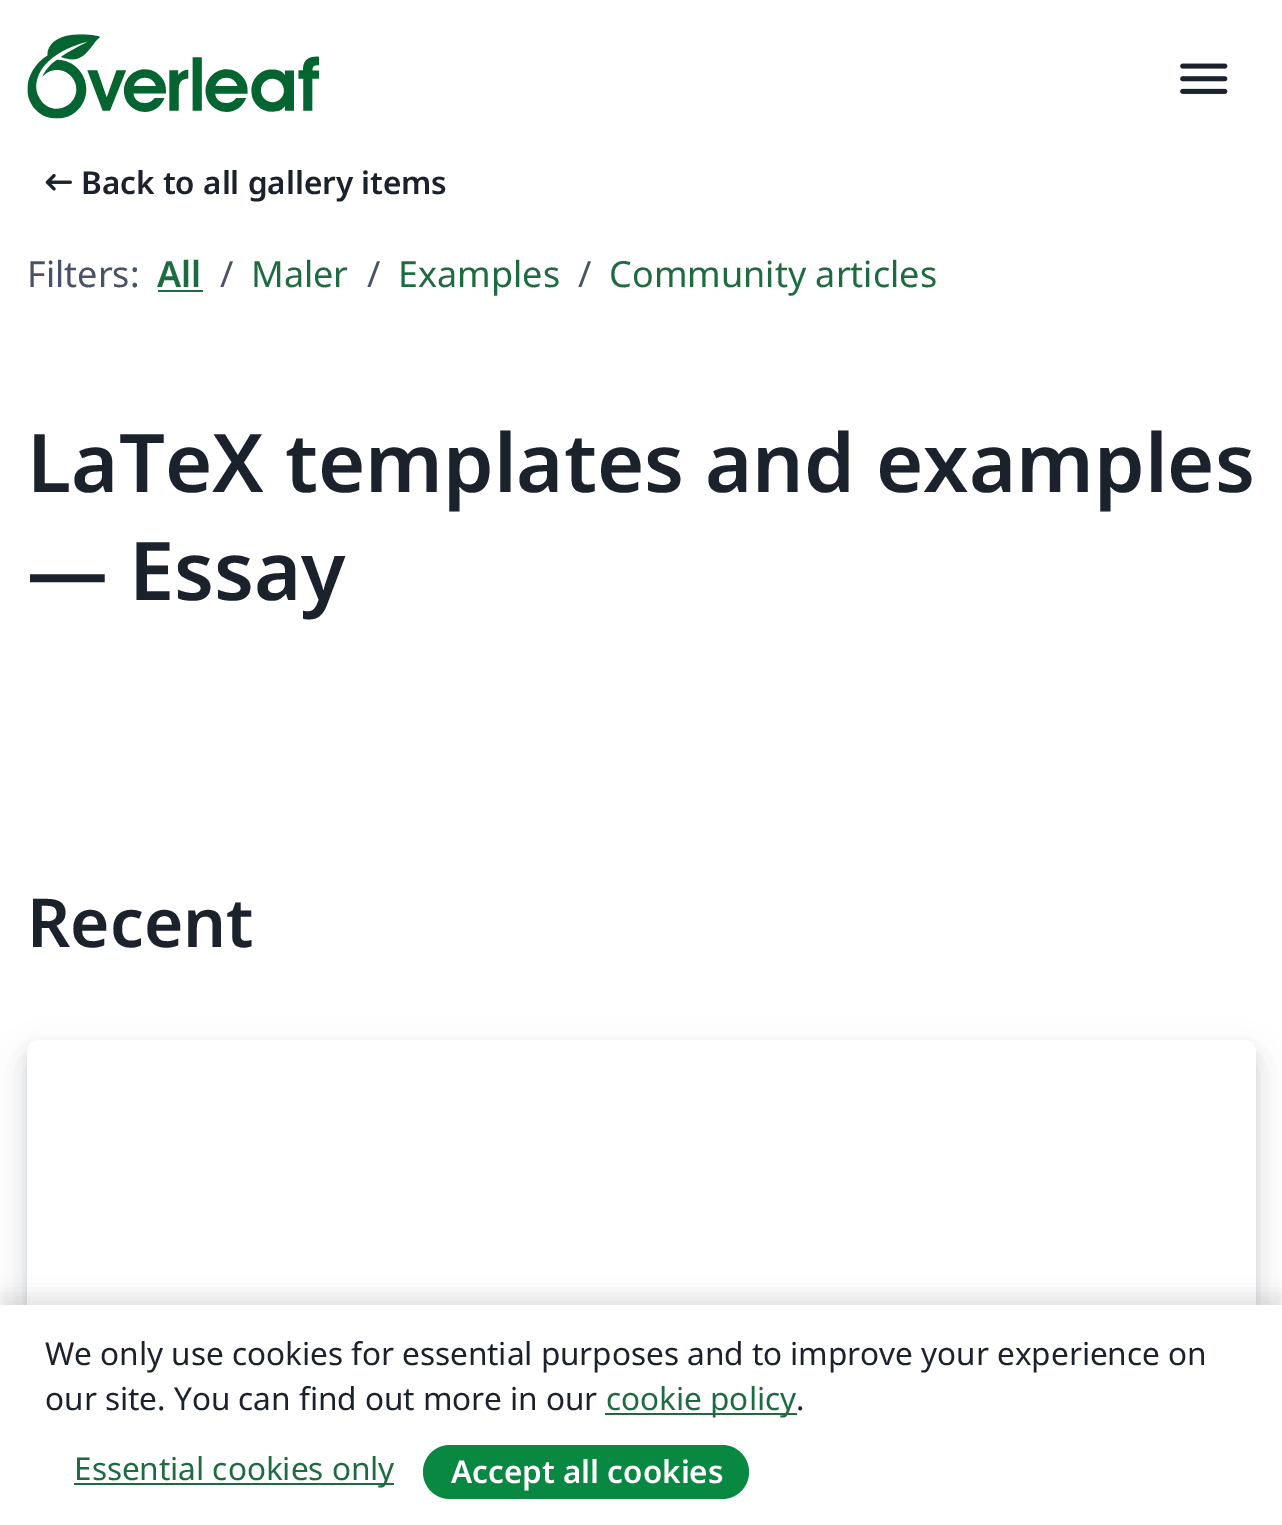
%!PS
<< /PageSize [1282 1525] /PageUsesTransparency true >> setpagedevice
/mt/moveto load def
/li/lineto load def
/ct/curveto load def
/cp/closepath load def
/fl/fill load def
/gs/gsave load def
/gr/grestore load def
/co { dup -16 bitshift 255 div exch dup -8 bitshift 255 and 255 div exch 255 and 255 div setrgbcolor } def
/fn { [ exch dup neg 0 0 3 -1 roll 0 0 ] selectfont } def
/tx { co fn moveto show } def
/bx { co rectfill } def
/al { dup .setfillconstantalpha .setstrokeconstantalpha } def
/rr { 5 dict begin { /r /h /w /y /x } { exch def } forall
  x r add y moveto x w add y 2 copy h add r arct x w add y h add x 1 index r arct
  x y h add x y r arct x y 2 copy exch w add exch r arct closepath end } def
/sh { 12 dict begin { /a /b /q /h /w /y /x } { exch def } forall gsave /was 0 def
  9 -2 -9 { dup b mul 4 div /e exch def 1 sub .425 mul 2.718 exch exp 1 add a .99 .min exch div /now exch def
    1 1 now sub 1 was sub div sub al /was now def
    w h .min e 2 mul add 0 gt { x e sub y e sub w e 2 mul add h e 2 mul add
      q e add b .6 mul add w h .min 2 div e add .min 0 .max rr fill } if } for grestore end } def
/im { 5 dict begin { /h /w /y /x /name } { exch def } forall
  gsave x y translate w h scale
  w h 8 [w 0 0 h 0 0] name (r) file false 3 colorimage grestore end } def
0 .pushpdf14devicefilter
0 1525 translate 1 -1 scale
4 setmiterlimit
0 0 1282 1525 16#FFFFFF bx
(media/1.raw) 27 34 293 85 im
(media/2.raw) 1180 63 48 31 im
(media/3.raw) 45 174 27 17 im
158 290 45 2 16#1E6B41 bx
gs
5 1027 mt 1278 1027 li 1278 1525 li 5 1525 li cp 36 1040 mt 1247 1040 li 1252 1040 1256 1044 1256 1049 ct 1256 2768 li 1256 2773 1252 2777 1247 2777 ct 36 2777 li 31 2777 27 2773 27 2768 ct 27 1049 li 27 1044 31 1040 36 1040 ct cp eoclip newpath
16#1E2530 co
27 1049 1229 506 9 7 .12 sh
gr
gs
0 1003 mt 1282 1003 li 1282 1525 li 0 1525 li cp 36 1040 mt 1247 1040 li 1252 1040 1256 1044 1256 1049 ct 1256 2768 li 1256 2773 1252 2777 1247 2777 ct 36 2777 li 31 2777 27 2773 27 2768 ct 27 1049 li 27 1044 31 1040 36 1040 ct cp eoclip newpath
16#1E2530 co
27 1058 1229 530 9 18 .12 sh
gr
16#000000 co
0 1294 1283 220 0 9 .1 sh
0 1305 1282 220 16#FFFFFF bx
605 1413 192 2 16#1E6B41 bx
74 1483 320 2 16#1E6B41 bx
16#098842 co
423 1445 326 54 27 rr fl
(Back to all gallery items) 81 194 /NotoSans-SemiBold 31.5 16#1B222C tx
(Filters:) 27 287 /NotoSans-Regular 36 16#495365 tx
(All) 157 287 /NotoSans-SemiBold 36 16#1E6B41 tx
(/) 220 287 /NotoSans-Regular 36 16#495365 tx
(Maler) 251 287 /NotoSans-Regular 36 16#1E6B41 tx
(/) 367 287 /NotoSans-Regular 36 16#495365 tx
(Examples) 398 287 /NotoSans-Regular 36 16#1E6B41 tx
(/) 578 287 /NotoSans-Regular 36 16#495365 tx
(Community articles) 609 287 /NotoSans-Regular 36 16#1E6B41 tx
(LaTeX templates and examples) 27 492 /NotoSans-SemiBold 81 16#1B222C tx
(— Essay) 27 600 /NotoSans-SemiBold 81 16#1B222C tx
(Recent) 27 947 /NotoSans-SemiBold 67.5 16#1B222C tx
(We only use cookies for essential purposes and to improve your experience on) 45 1365 /NotoSans-Regular 31.5 16#1B222C tx
(our site. You can find out more in our) 45 1410 /NotoSans-Regular 31.5 16#1B222C tx
(cookie policy) 606 1410 /NotoSans-Regular 31.5 16#1E6B41 tx
(.) 796 1410 /NotoSans-Regular 31.5 16#1B222C tx
(Essential cookies only) 74 1480 /NotoSans-Regular 31.5 16#1E6B41 tx
(Accept all cookies) 451 1483 /NotoSans-SemiBold 31.5 16#FFFFFF tx
.poppdf14devicefilter showpage
